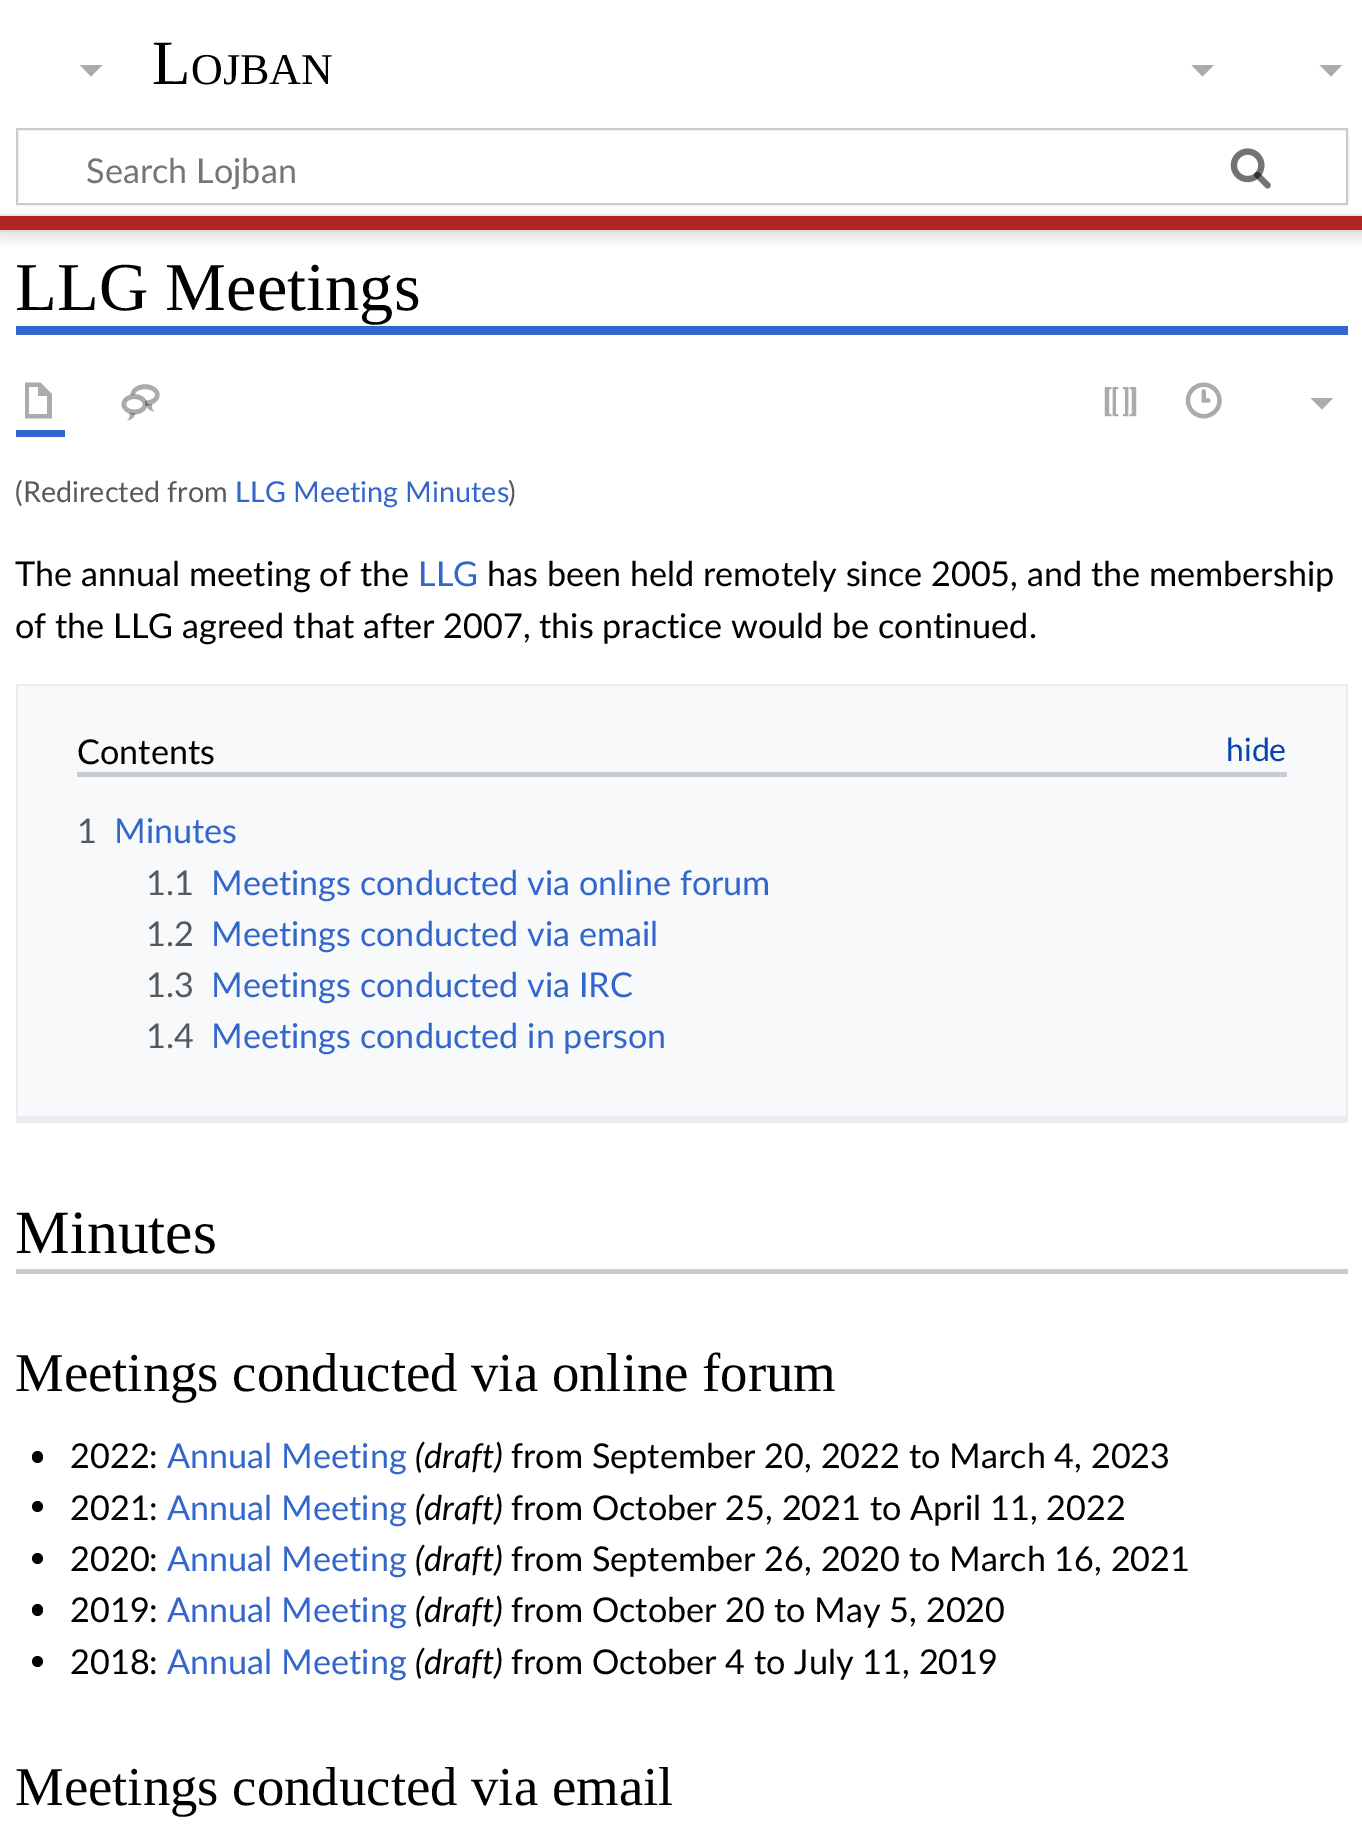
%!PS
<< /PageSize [1362 1841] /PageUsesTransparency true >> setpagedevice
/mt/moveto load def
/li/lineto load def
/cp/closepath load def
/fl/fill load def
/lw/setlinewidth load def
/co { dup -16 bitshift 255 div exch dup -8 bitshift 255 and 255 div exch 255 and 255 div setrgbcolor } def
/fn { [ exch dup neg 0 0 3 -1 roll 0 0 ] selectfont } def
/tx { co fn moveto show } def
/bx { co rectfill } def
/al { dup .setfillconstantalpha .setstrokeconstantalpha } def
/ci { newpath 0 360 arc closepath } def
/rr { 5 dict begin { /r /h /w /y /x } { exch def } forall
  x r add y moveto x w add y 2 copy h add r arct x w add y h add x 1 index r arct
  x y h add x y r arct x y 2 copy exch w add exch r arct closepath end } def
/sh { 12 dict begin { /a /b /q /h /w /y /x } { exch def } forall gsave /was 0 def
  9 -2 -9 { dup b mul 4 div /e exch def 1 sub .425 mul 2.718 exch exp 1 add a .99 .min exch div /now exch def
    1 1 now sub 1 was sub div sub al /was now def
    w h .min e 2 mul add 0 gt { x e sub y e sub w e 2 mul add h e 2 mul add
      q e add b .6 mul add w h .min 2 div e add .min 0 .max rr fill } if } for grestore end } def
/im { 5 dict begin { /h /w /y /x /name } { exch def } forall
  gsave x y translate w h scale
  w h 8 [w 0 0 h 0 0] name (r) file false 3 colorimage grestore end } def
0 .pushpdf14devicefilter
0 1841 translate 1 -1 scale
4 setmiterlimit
0 0 1362 1841 16#FFFFFF bx
16#ABABAB co
1342 65 mt 1331 76.5 li 1319.5 65 li cp fl
16#C8CCD1 co
2 lw
17 129 1330 75 rectstroke
(media/1.raw) 1230 148 41 41 im
(media/2.raw) 1230 148 41 41 im
16#000000 co
0 216 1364 14 0 2 .2 sh
-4 218 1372 23 0 3.5 .07 sh
0 216 1362 14 16#B32424 bx
16#ABABAB co
102.5 65 mt 91 76.5 li 80 65 li cp fl
1214 65 mt 1202.5 76.5 li 1191.5 65 li cp fl
16 326 1332 9 16#3366CC bx
16 430 49 7 16#3366CC bx
16#ABABAB co
25 382.5 mt 25 418.5 li 52 418.5 li 52 394 li 40.5 382.5 li cp 29 387 mt 38 387 li 38 396 li 47 396 li 47 414 li 29 414 li cp fl
(media/3.raw) 121 384 39 37 im
(media/4.raw) 1104 387 33 30 im
(media/5.raw) 1185 382 37 37 im
1333 398 mt 1322 409.5 li 1310.5 398 li cp fl
18 686 1328 430 16#F8F9FA bx
16 684 1332 2 16#EAECF0 bx
1346 684 2 439 16#EAECF0 bx
16 1116 1332 7 16#EAECF0 bx
16 684 2 439 16#EAECF0 bx
77 772 1210 5 16#C8CCD1 bx
16 1269 1332 5 16#C8CCD1 bx
16#000000 co
32 1451 11 12 5.5 rr fl
37.5 1506.5 5.5 ci fl
37.5 1558.5 5.5 ci fl
32 1604 11 12 5.5 rr fl
37.5 1661.5 5.5 ci fl
(L) 152 84 /LiberationSerif-Regular 63 16#000000 tx
(OJBAN) 191 84 /LiberationSerif-Regular 44 16#000000 tx
(Search Lojban) 86 183 /Lato-Regular 34.2 16#757575 tx
(LLG Meetings) 15 310 /LiberationSerif-Regular 68.5 16#000000 tx
(\(Redirected from) 15 502 /Lato-Regular 28.75 16#54595D tx
(LLG Meeting Minutes) 235 502 /Lato-Regular 28.75 16#3366CC tx
(\)) 508 502 /Lato-Regular 28.75 16#54595D tx
(The annual meeting of the) 15 586 /Lato-Regular 34.2 16#000000 tx
(LLG) 418 586 /Lato-Regular 34.2 16#3366CC tx
(has been held remotely since 2005, and the membership) 487 586 /Lato-Regular 34.2 16#000000 tx
(of the LLG agreed that after 2007, this practice would be continued.) 15 638 /Lato-Regular 34.2 16#000000 tx
(Contents) 77 764 /Lato-Regular 34.2 16#000000 tx
(hide) 1226 761 /Lato-Regular 32 16#0645AD tx
(1) 77 843 /Lato-Regular 34.2 16#54595D tx
(Minutes) 114 843 /Lato-Regular 34.2 16#3366CC tx
(1.1) 146 895 /Lato-Regular 34.2 16#54595D tx
(Meetings conducted via online forum) 211 895 /Lato-Regular 34.2 16#3366CC tx
(1.2) 146 946 /Lato-Regular 34.2 16#54595D tx
(Meetings conducted via email) 211 946 /Lato-Regular 34.2 16#3366CC tx
(1.3) 146 997 /Lato-Regular 34.2 16#54595D tx
(Meetings conducted via IRC) 211 997 /Lato-Regular 34.2 16#3366CC tx
(1.4) 146 1048 /Lato-Regular 34.2 16#54595D tx
(Meetings conducted in person) 211 1048 /Lato-Regular 34.2 16#3366CC tx
(Minutes) 15 1253 /LiberationSerif-Regular 61.5 16#000000 tx
(Meetings conducted via online forum) 15 1391 /LiberationSerif-Regular 54.75 16#000000 tx
(2022:) 70 1468 /Lato-Regular 34.2 16#000000 tx
(Annual Meeting) 167 1468 /Lato-Regular 34.2 16#3366CC tx
(\(draft\)) 415 1468 /Lato-Italic 34.2 16#000000 tx
(from September 20, 2022 to March 4, 2023) 511 1468 /Lato-Regular 34.2 16#000000 tx
(2021:) 70 1520 /Lato-Regular 34.2 16#000000 tx
(Annual Meeting) 167 1520 /Lato-Regular 34.2 16#3366CC tx
(\(draft\)) 415 1520 /Lato-Italic 34.2 16#000000 tx
(from October 25, 2021 to April 11, 2022) 511 1520 /Lato-Regular 34.2 16#000000 tx
(2020:) 70 1571 /Lato-Regular 34.2 16#000000 tx
(Annual Meeting) 167 1571 /Lato-Regular 34.2 16#3366CC tx
(\(draft\)) 415 1571 /Lato-Italic 34.2 16#000000 tx
(from September 26, 2020 to March 16, 2021) 511 1571 /Lato-Regular 34.2 16#000000 tx
(2019:) 70 1622 /Lato-Regular 34.2 16#000000 tx
(Annual Meeting) 167 1622 /Lato-Regular 34.2 16#3366CC tx
(\(draft\)) 415 1622 /Lato-Italic 34.2 16#000000 tx
(from October 20 to May 5, 2020) 511 1622 /Lato-Regular 34.2 16#000000 tx
(2018:) 70 1674 /Lato-Regular 34.2 16#000000 tx
(Annual Meeting) 167 1674 /Lato-Regular 34.2 16#3366CC tx
(\(draft\)) 415 1674 /Lato-Italic 34.2 16#000000 tx
(from October 4 to July 11, 2019) 511 1674 /Lato-Regular 34.2 16#000000 tx
(Meetings conducted via email) 15 1805 /LiberationSerif-Regular 54.75 16#000000 tx
.poppdf14devicefilter showpage
